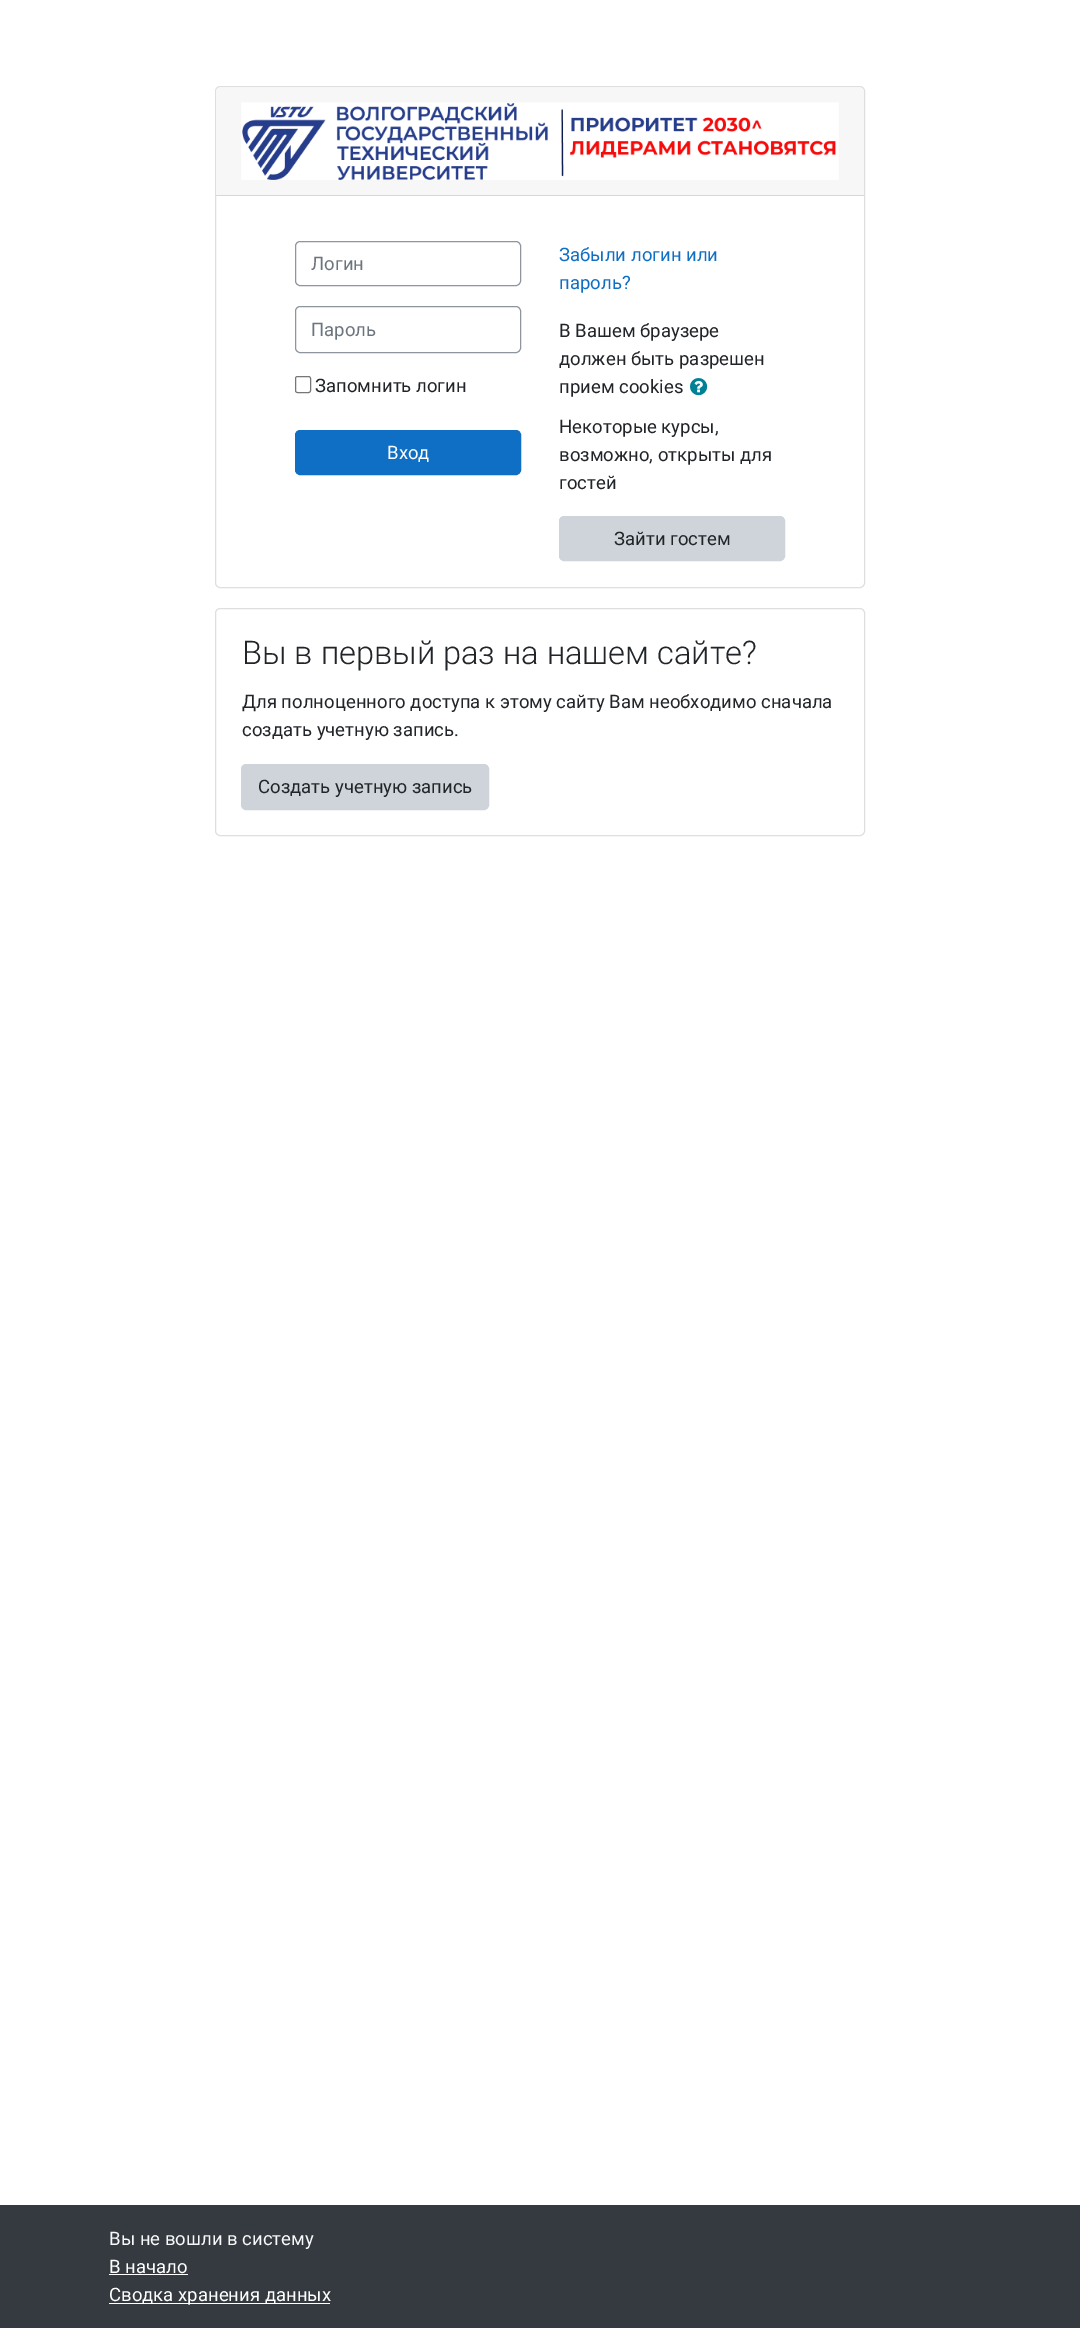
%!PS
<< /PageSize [1080 2328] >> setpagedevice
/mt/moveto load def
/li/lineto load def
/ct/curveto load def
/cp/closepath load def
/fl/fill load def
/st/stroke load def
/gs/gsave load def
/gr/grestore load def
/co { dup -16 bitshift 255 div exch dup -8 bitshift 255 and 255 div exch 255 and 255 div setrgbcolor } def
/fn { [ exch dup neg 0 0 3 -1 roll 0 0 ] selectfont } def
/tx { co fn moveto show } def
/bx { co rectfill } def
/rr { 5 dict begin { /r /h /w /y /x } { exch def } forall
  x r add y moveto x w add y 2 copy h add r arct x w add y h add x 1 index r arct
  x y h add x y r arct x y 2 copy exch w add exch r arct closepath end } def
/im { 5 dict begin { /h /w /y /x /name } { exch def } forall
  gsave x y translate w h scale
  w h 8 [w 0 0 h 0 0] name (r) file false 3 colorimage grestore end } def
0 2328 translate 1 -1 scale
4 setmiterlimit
0 0 1080 2328 16#FFFFFF bx
16#DFDFDF co
215.5 86.5 649 501 4.5 rr st
16#F7F7F7 co
220 88 mt 860 88 li 862 88 864 90 864 92 ct 864 196 li 216 196 li 216 92 li 216 90 218 88 220 88 ct cp fl
216 195 648 1 16#D8D8D8 bx
(media/1.raw) 241 102 598 78 im
16#8F959E co
295.5 241.5 225 44 4.5 rr st
295.5 306.5 225 46 4.5 rr st
16#767676 co
295.5 376.5 15 16 2 rr st
16#0F6FC5 co
295.5 430.5 225 44 4.5 rr gs fl gr
st
(media/2.raw) 690 378 18 18 im
16#CED4DA co
559.5 516.5 225 44 4.5 rr gs fl gr
st
16#DFDFDF co
215.5 608.5 649 227 4.5 rr st
16#CED4DA co
241.5 764.5 247 45 4.5 rr gs fl gr
st
0 2205 1080 123 16#343A40 bx
109 2274 79 1 16#FFFFFF bx
109 2303 221 1 16#FFFFFF bx
(Логин) 311 270 /Roboto-Regular 18.55 16#6C757D tx
(Пароль) 311 336 /Roboto-Regular 18.55 16#6C757D tx
(Запомнить логин) 315 392 /Roboto-Regular 18.55 16#212529 tx
(Вход) 387 459 /Roboto-Regular 18.55 16#FFFFFF tx
(Забыли логин или) 559 261 /Roboto-Regular 18.55 16#0F6FC5 tx
(пароль?) 559 289 /Roboto-Regular 18.55 16#0F6FC5 tx
(В Вашем браузере) 559 337 /Roboto-Regular 18.55 16#212529 tx
(должен быть разрешен) 559 365 /Roboto-Regular 18.55 16#212529 tx
(прием cookies) 559 393 /Roboto-Regular 18.55 16#212529 tx
(Некоторые курсы,) 559 433 /Roboto-Regular 18.55 16#212529 tx
(возможно, открыты для) 559 461 /Roboto-Regular 18.55 16#212529 tx
(гостей) 559 489 /Roboto-Regular 18.55 16#212529 tx
(Зайти гостем) 614 545 /Roboto-Regular 18.55 16#212529 tx
(Вы в первый раз на нашем сайте?) 242 664 /Roboto-Light 32.6 16#212529 tx
(Для полноценного доступа к этому сайту Вам необходимо сначала) 242 708 /Roboto-Regular 18.55 16#212529 tx
(создать учетную запись.) 242 736 /Roboto-Regular 18.55 16#212529 tx
(Создать учетную запись) 258 793 /Roboto-Regular 18.55 16#212529 tx
(Вы не вошли в систему) 109 2245 /Roboto-Regular 18.55 16#F8F9FA tx
(В начало) 109 2273 /Roboto-Regular 18.55 16#FFFFFF tx
(Сводка хранения данных) 109 2301 /Roboto-Regular 18.55 16#FFFFFF tx
showpage
